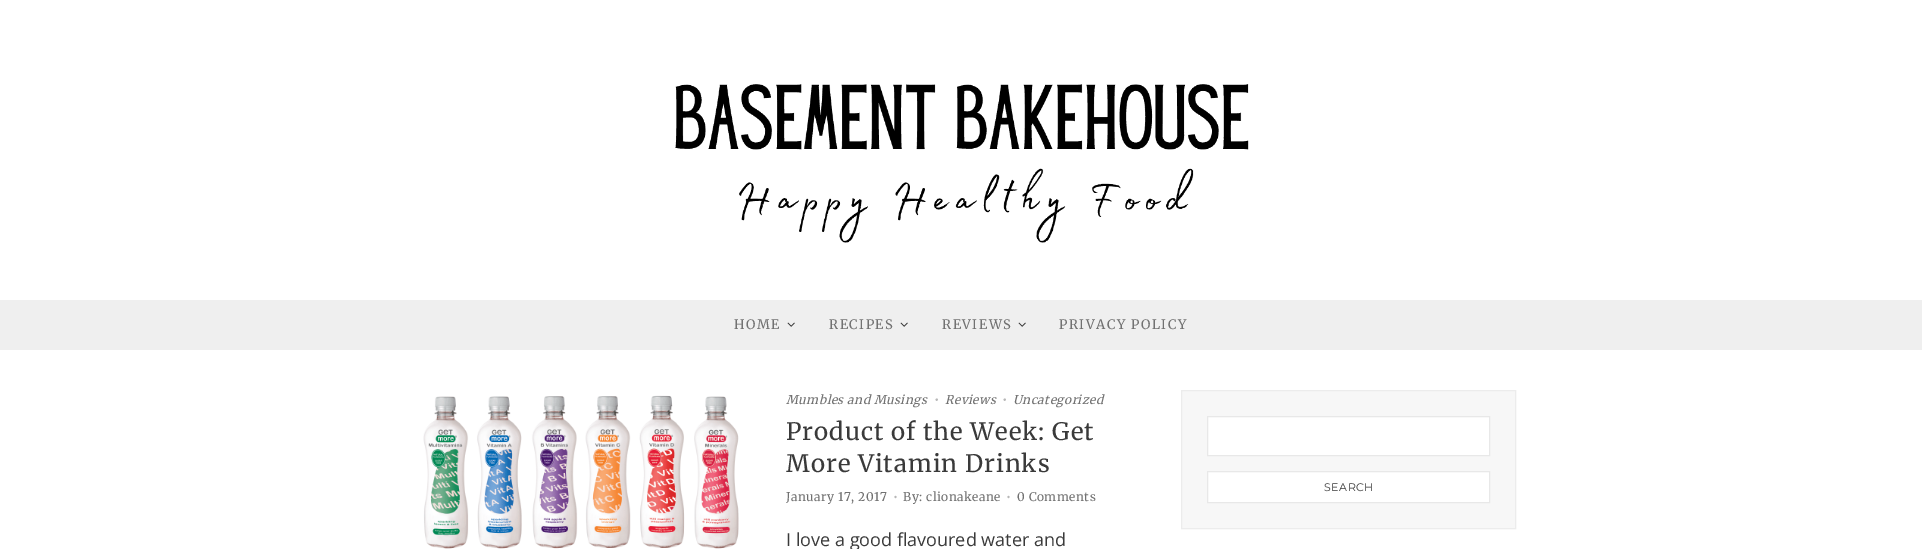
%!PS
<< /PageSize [1922 549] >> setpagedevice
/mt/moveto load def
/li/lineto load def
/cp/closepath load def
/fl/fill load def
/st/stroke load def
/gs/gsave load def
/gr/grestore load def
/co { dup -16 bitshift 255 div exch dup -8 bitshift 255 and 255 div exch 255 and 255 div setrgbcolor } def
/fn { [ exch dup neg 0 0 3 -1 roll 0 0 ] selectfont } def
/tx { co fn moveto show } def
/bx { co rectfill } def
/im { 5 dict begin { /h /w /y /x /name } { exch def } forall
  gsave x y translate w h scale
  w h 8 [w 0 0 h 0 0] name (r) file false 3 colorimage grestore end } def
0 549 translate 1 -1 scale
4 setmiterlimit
0 0 1922 549 16#FFFFFF bx
(media/1.raw) 675 84 574 159 im
0 300 1922 50 16#EFEFEF bx
(media/2.raw) 787 322 8 5 im
(media/2.raw) 900 322 8 5 im
(media/2.raw) 1018 322 8 5 im
(media/3.raw) 423 395 316 154 im
16#F7F7F7 co
1181.5 390.5 mt 1515.5 390.5 li 1515.5 528.5 li 1181.5 528.5 li cp gs fl gr
16#ECECEC co
st
16#FFFFFF co
1207.5 416.5 mt 1489.5 416.5 li 1489.5 455.5 li 1207.5 455.5 li cp gs fl gr
16#E8E8E8 co
st
16#FFFFFF co
1207.5 471.5 mt 1489.5 471.5 li 1489.5 502.5 li 1207.5 502.5 li cp gs fl gr
16#E8E8E8 co
st
/Merriweather-Light 13 fn
16#717171 co
734 329 mt 1.5 0 (HOME) ashow
829 329 mt 1.5 0 (RECIPES) ashow
942 329 mt 1.5 0 (REVIEWS) ashow
1059 329 mt 1.5 0 (PRIVACY POLICY) ashow
/Merriweather-LightItalic 12 fn
786 404 mt .5 0 (Mumbles and Musings) ashow
(•) 934 404 /Merriweather-Light 13 16#B7B7B7 tx
/Merriweather-LightItalic 12 fn
16#717171 co
945 404 mt .5 0 (Reviews) ashow
(•) 1002 404 /Merriweather-Light 13 16#B7B7B7 tx
/Merriweather-LightItalic 12 fn
16#717171 co
1013 404 mt .5 0 (Uncategorized) ashow
/Merriweather-Light 24 fn
16#3A3A3A co
786 440 mt 1 0 (Product of the Week: Get) ashow
786 472 mt 1 0 (More Vitamin Drinks) ashow
/Merriweather-Light 12 fn
16#717171 co
786 501 mt .5 0 (January 17, 2017) ashow
16#B7B7B7 co
893 501 mt .5 0 (•) ashow
16#717171 co
903 501 mt .5 0 (By: clionakeane) ashow
16#B7B7B7 co
1006 501 mt .5 0 (•) ashow
16#717171 co
1017 501 mt .5 0 (0 Comments) ashow
(I love a good flavoured water and) 786 546 /OpenSans-Regular 18 16#3A3A3A tx
/Montserrat-Thin 11 fn
1324 491 mt .5 0 (SEARCH) ashow
showpage
